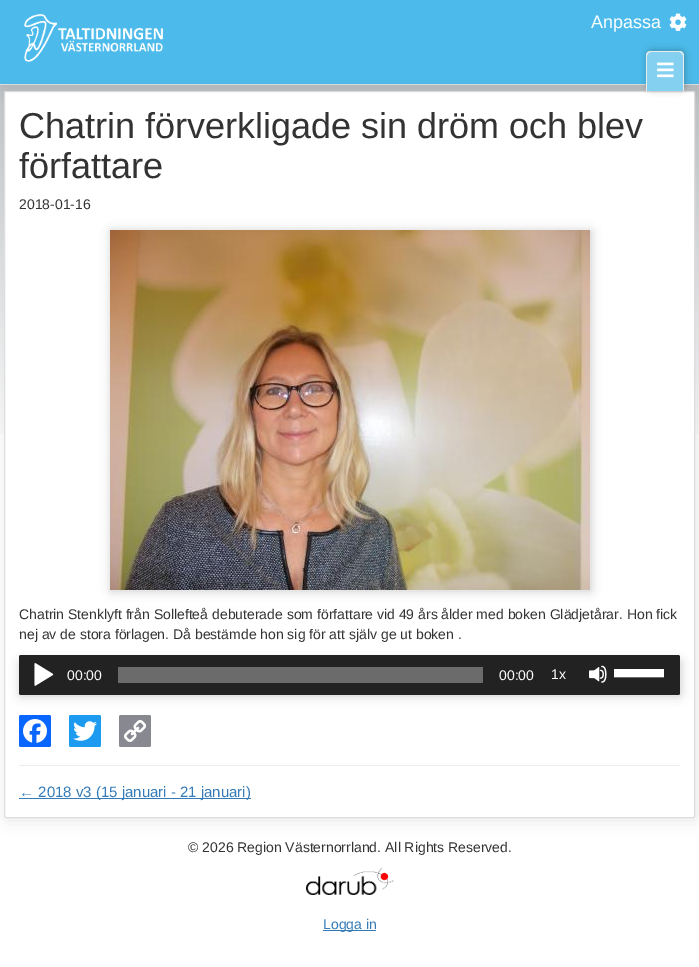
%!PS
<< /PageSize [699 967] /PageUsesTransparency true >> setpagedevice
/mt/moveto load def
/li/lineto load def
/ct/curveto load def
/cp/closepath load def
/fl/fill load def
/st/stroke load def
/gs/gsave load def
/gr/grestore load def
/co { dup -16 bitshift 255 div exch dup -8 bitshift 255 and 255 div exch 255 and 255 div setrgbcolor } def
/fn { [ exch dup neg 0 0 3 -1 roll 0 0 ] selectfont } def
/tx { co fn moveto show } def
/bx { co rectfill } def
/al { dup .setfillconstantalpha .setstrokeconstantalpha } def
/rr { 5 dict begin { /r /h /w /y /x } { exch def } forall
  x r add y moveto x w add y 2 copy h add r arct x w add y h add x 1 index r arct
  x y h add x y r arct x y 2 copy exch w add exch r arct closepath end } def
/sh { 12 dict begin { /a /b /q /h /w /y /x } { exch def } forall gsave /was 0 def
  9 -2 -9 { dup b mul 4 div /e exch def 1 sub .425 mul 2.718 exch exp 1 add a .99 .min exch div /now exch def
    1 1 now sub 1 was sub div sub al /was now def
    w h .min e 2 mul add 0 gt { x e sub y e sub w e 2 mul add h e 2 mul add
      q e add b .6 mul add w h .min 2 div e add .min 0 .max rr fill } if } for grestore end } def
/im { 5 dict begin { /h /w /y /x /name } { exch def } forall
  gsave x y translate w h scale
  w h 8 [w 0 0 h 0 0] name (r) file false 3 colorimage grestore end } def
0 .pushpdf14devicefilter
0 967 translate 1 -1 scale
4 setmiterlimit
0 0 699 967 16#FFFFFF bx
(media/1.raw) 0 85 699 349 im
16#000000 co
0 4 699 85 0 6.5 .1 sh
0 0 699 84 16#4CBBEB bx
0 84 699 1 16#DDDDDD bx
(media/2.raw) 24 14 139 49 im
(media/3.raw) 669 13 18 18 im
16#000000 co
6 93 691 727 2 7.5 .1 sh
16#FFFFFF co
4.5 91.5 690 726 1.5 rr gs fl gr
16#DDDDDD co
st
16#000000 co
647 50 38 40 5 3.5 .25 sh
16#84D0F0 co
651 51 mt 679 51 li 682 51 684 53 684 56 ct 684 91 li 646 91 li 646 56 li 646 53 648 51 651 51 ct cp fl
16#ECECEC co
651 51 mt 679 51 li 682 51 684 53 684 56 ct 684 91 li 646 91 li 646 56 li 646 53 648 51 651 51 ct cp 651 52 mt 679 52 li 681 52 683 54 683 56 ct 683 91 li 647 91 li 647 56 li 647 54 649 52 651 52 ct cp eofill
(media/4.raw) 657 62 17 16 im
19 765 661 1 16#ECECEC bx
16#000000 co
111 231 480 360 0 5 .2 sh
(media/5.raw) 110 230 480 360 im
20 661 661 35 2 5 .2 sh
16#222222 co
19 655 661 40 2 rr fl
(media/6.raw) 34 663 20 23 im
118 667 365 16 16#6B6B6B bx
(media/7.raw) 589 665 18 18 im
614 677 50 1 16#6B6B6B bx
614 669 50 8 16#FFFFFF bx
16#0866FF co
19 715 32 32 2 rr fl
(media/8.raw) 23 719 24 24 im
16#1D9BF0 co
69 715 32 32 2 rr fl
(media/9.raw) 73 721 24 20 im
16#888990 co
119 715 32 32 2 rr fl
(media/10.raw) 124 720 22 22 im
19 798 232 1 16#337AB7 bx
(media/11.raw) 306 868 88 27 im
323 930 53 1 16#337AB7 bx
(Anpassa) 591 28 /LiberationSans-Regular 18 16#FFFFFF tx
(Chatrin förverkligade sin dröm och blev) 19 138 /LiberationSans-Regular 36 16#333333 tx
(författare) 19 178 /LiberationSans-Regular 36 16#333333 tx
(2018-01-16) 19 209 /LiberationSans-Regular 14 16#333333 tx
(Chatrin Stenklyft från Sollefteå debuterade som författare vid 49 års ålder med boken Glädjetårar. Hon fick) 19 619 /LiberationSans-Regular 14 16#333333 tx
(nej av de stora förlagen. Då bestämde hon sig för att själv ge ut boken .) 19 639 /LiberationSans-Regular 14 16#333333 tx
(00:00) 67 680 /LiberationSans-Regular 14 16#FFFFFF tx
(00:00) 499 680 /LiberationSans-Regular 14 16#FFFFFF tx
(1x) 551 679 /LiberationSans-Regular 14 16#FFFFFF tx
(← 2018 v3 \(15 januari - 21 januari\)) 19 797 /LiberationSans-Regular 15 16#337AB7 tx
(© 2026 Region Västernorrland. All Rights Reserved.) 188 852 /LiberationSans-Regular 14 16#333333 tx
(Logga in) 323 929 /LiberationSans-Regular 14 16#337AB7 tx
.poppdf14devicefilter showpage
